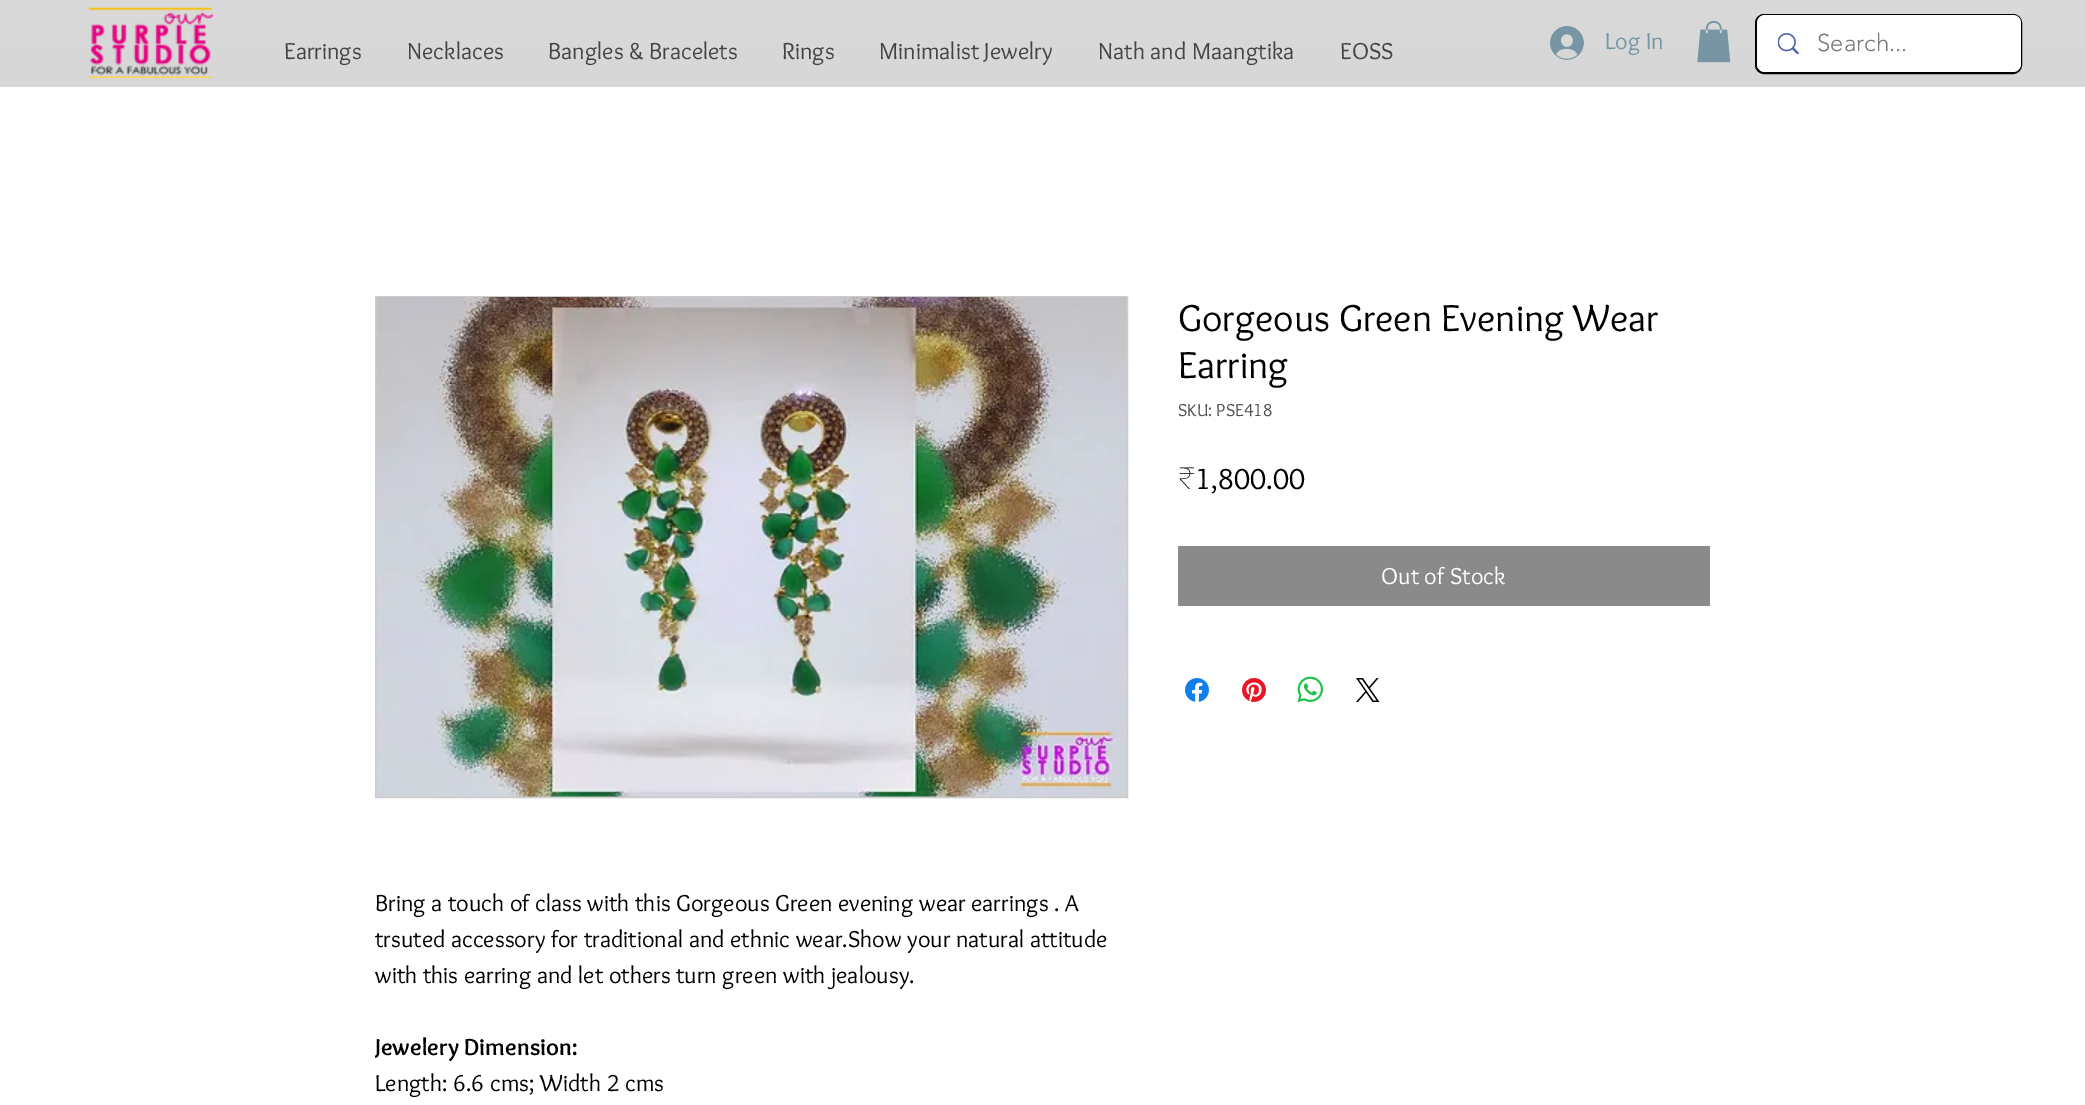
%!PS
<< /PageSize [2085 1105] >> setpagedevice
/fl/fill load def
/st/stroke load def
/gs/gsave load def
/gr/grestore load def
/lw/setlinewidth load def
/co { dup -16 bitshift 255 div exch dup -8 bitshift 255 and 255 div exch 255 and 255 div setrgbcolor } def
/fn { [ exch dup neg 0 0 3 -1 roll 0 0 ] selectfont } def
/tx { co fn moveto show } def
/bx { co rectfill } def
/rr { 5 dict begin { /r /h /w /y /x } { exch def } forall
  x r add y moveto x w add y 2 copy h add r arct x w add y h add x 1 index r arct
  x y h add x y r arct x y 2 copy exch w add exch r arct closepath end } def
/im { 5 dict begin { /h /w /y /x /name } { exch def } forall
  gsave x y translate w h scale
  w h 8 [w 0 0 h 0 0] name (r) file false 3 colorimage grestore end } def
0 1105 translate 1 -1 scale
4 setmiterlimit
0 0 2085 1105 16#FFFFFF bx
0 0 2085 87 16#CCCCCC bx
(media/1.raw) 0 0 2085 87 im
(media/2.raw) 88 7 125 71 im
(media/3.raw) 1550 26 34 34 im
(media/4.raw) 1697 21 34 42 im
16#000000 co
2 lw
1756 15 265 58 8 rr st
16#FFFFFF co
1757 15 264 57 8 rr fl
(media/5.raw) 1778 33 21 21 im
1178 546 532 60 16#8B8A8A bx
(media/6.raw) 1185 678 24 24 im
(media/7.raw) 1242 678 24 24 im
(media/8.raw) 1297 676 26 27 im
(media/9.raw) 1356 678 24 24 im
16#CCCCCC co
376 297 751 500 rectstroke
(media/10.raw) 376 297 751 500 im
(Earrings) 284 59 /Overlock-Regular 24 16#444444 tx
(Necklaces) 407 59 /Overlock-Regular 24 16#444444 tx
(Bangles & Bracelets) 548 59 /Overlock-Regular 24 16#444444 tx
(Rings) 782 59 /Overlock-Regular 24 16#444444 tx
(Minimalist Jewelry) 879 59 /Overlock-Regular 24 16#444444 tx
(Nath and Maangtika) 1098 59 /Overlock-Regular 24 16#444444 tx
(EOSS) 1340 59 /Overlock-Regular 24 16#444444 tx
(Log In) 1605 49 /Overlock-Regular 24 16#7795A3 tx
(Search...) 1817 51 /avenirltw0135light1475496-Light 24 16#787878 tx
(Gorgeous Green Evening Wear) 1178 331 /Overlock-Regular 39 16#000000 tx
(Earring) 1178 378 /Overlock-Regular 39 16#000000 tx
(SKU: PSE418) 1178 416 /Overlock-Regular 18 16#504F4F tx
(₹) 1178 489 /NotoSans-Thin 30 16#000000 tx
(1,800.00) 1195 489 /Overlock-Regular 30 16#000000 tx
(Out of Stock) 1381 584 /Overlock-Regular 24 16#FFFFFF tx
(Bring a touch of class with this Gorgeous Green evening wear earrings . A) 375 911 /Overlock-Regular 24 16#000000 tx
(trsuted accessory for traditional and ethnic wear.Show your natural attitude) 375 947 /Overlock-Regular 24 16#000000 tx
(with this earring and let others turn green with jealousy.) 375 983 /Overlock-Regular 24 16#000000 tx
gs
375 885 750 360 rectclip
(Jewelery Dimension:) 375 1055 /Overlock-Bold 24 16#000000 tx
gr
(Length: 6.6 cms; Width 2 cms) 375 1091 /Overlock-Regular 24 16#000000 tx
showpage
